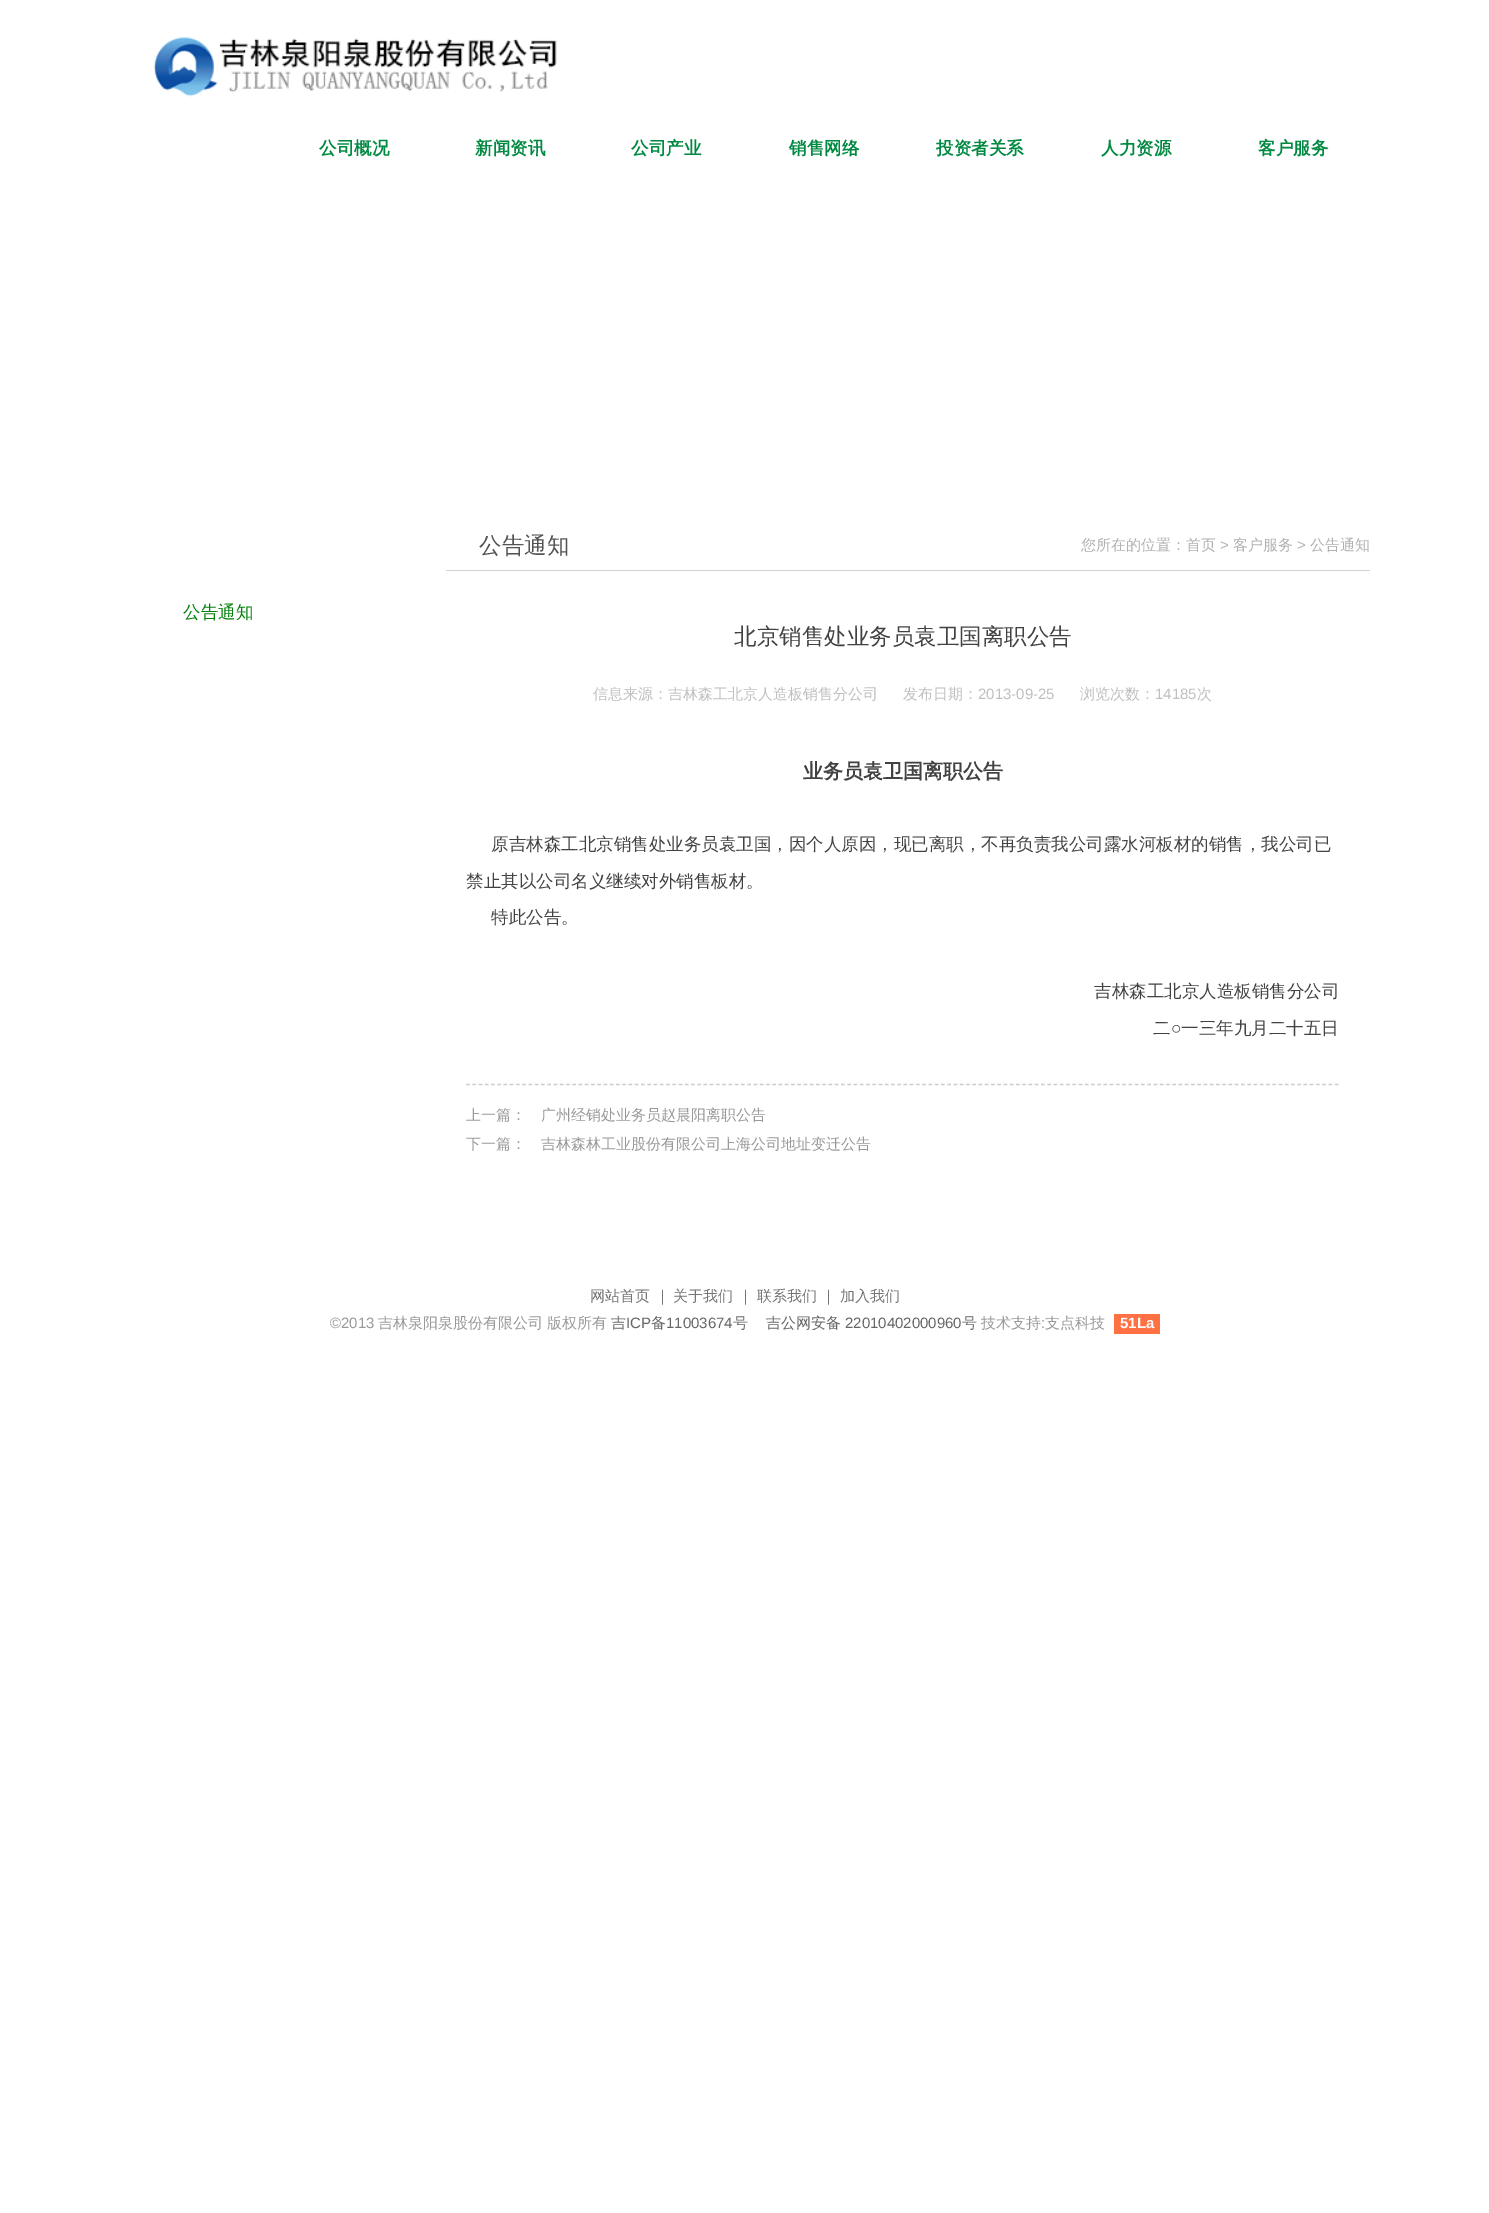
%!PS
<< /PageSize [1489 2213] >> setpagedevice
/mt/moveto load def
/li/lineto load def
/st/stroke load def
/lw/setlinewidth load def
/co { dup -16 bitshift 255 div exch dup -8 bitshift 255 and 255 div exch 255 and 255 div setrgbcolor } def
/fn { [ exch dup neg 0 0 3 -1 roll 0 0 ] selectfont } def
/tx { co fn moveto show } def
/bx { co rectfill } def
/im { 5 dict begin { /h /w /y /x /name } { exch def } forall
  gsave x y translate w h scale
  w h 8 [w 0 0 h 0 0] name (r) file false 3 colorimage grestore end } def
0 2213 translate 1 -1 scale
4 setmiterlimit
0 0 1489 2213 16#FFFFFF bx
(media/1.raw) 153 37 404 60 im
446 570 924 1 16#D0D0D0 bx
16#CECECE co
1.2 lw
[3.75 2.5] 0 setdash
466 1084.5 mt 1339 1084.5 li st
1114 1314 46 20 16#FF7043 bx
(公司概况) 319 154 /WenQuanYiZenHei-Bold 17.5 16#008941 tx
(新闻资讯) 475 154 /WenQuanYiZenHei-Bold 17.5 16#008941 tx
(公司产业) 631 154 /WenQuanYiZenHei-Bold 17.5 16#008941 tx
(销售网络) 789 154 /WenQuanYiZenHei-Bold 17.5 16#008941 tx
(投资者关系) 936 154 /WenQuanYiZenHei-Bold 17.5 16#008941 tx
(人力资源) 1101 154 /WenQuanYiZenHei-Bold 17.5 16#008941 tx
(客户服务) 1258 154 /WenQuanYiZenHei-Bold 17.5 16#008941 tx
(公告通知) 183 618 /WenQuanYiZenHei-Medium 17.5 16#02810A tx
(公告通知) 479 553 /WenQuanYiZenHei-Medium 22.5 16#535353 tx
(您所在的位置：首页) 1081 550 /WenQuanYiZenHei-Medium 15 16#B2B1B1 tx
(>) 1220 550 /LiberationSans-Regular 15 16#B2B1B1 tx
(客户服务) 1233 550 /WenQuanYiZenHei-Medium 15 16#B2B1B1 tx
(>) 1297 550 /LiberationSans-Regular 15 16#B2B1B1 tx
(公告通知) 1310 550 /WenQuanYiZenHei-Medium 15 16#B2B1B1 tx
(北京销售处业务员袁卫国离职公告) 734 644 /WenQuanYiZenHei-Medium 22.5 16#424242 tx
(信息来源：吉林森工北京人造板销售分公司) 593 699 /WenQuanYiZenHei-Medium 15 16#BFBFBF tx
(发布日期：) 903 699 /WenQuanYiZenHei-Medium 15 16#BFBFBF tx
(2013-09-25) 978 699 /LiberationSans-Regular 15 16#BFBFBF tx
(浏览次数：) 1080 699 /WenQuanYiZenHei-Medium 15 16#BFBFBF tx
(14185) 1155 699 /LiberationSans-Regular 15 16#BFBFBF tx
(次) 1197 699 /WenQuanYiZenHei-Medium 15 16#BFBFBF tx
(业务员袁卫国离职公告) 803 778 /WenQuanYiZenHei-Bold 20 16#424242 tx
(原吉林森工北京销售处业务员袁卫国，因个人原因，现已离职，不再负责我公司露水河板材的销售，我公司已) 491 850 /WenQuanYiZenHei-Medium 17.5 16#424242 tx
(禁止其以公司名义继续对外销售板材。) 466 887 /WenQuanYiZenHei-Medium 17.5 16#424242 tx
(特此公告。) 491 923 /WenQuanYiZenHei-Medium 17.5 16#424242 tx
(吉林森工北京人造板销售分公司) 1094 997 /WenQuanYiZenHei-Medium 17.5 16#424242 tx
(二) 1153 1034 /WenQuanYiZenHei-Medium 17.5 16#424242 tx
(○) 1171 1034 /LiberationSans-Regular 17.5 16#424242 tx
(一三年九月二十五日) 1181 1034 /WenQuanYiZenHei-Medium 17.5 16#424242 tx
(上一篇：) 466 1120 /WenQuanYiZenHei-Medium 15 16#999999 tx
(广州经销处业务员赵晨阳离职公告) 541 1120 /WenQuanYiZenHei-Medium 15 16#999999 tx
(下一篇：) 466 1149 /WenQuanYiZenHei-Medium 15 16#999999 tx
(吉林森林工业股份有限公司上海公司地址变迁公告) 541 1149 /WenQuanYiZenHei-Medium 15 16#999999 tx
(网站首页) 590 1301 /WenQuanYiZenHei-Medium 15 16#747474 tx
(｜) 655 1301 /WenQuanYiZenHei-Medium 15 16#747474 tx
(关于我们) 673 1301 /WenQuanYiZenHei-Medium 15 16#747474 tx
(｜) 738 1301 /WenQuanYiZenHei-Medium 15 16#747474 tx
(联系我们) 757 1301 /WenQuanYiZenHei-Medium 15 16#747474 tx
(｜) 821 1301 /WenQuanYiZenHei-Medium 15 16#747474 tx
(加入我们) 840 1301 /WenQuanYiZenHei-Medium 15 16#747474 tx
(©2013) 330 1328 /LiberationSans-Regular 15 16#999999 tx
(吉林泉阳泉股份有限公司) 378 1328 /WenQuanYiZenHei-Medium 15 16#999999 tx
(版权所有) 547 1328 /WenQuanYiZenHei-Medium 15 16#999999 tx
(吉) 611 1328 /WenQuanYiZenHei-Medium 15 16#666666 tx
(ICP) 626 1328 /LiberationSans-Regular 15 16#666666 tx
(备) 651 1328 /WenQuanYiZenHei-Medium 15 16#666666 tx
(11003674) 666 1328 /LiberationSans-Regular 15 16#666666 tx
(号) 733 1328 /WenQuanYiZenHei-Medium 15 16#666666 tx
(吉公网安备) 766 1328 /WenQuanYiZenHei-Medium 15 16#666666 tx
(22010402000960) 845 1328 /LiberationSans-Regular 15 16#666666 tx
(号) 962 1328 /WenQuanYiZenHei-Medium 15 16#666666 tx
(技术支持) 981 1328 /WenQuanYiZenHei-Medium 15 16#999999 tx
(:) 1041 1328 /LiberationSans-Regular 15 16#999999 tx
(支点科技) 1045 1328 /WenQuanYiZenHei-Medium 15 16#999999 tx
(51La) 1120 1328 /LiberationSans-Bold 15 16#FFFFFF tx
showpage
